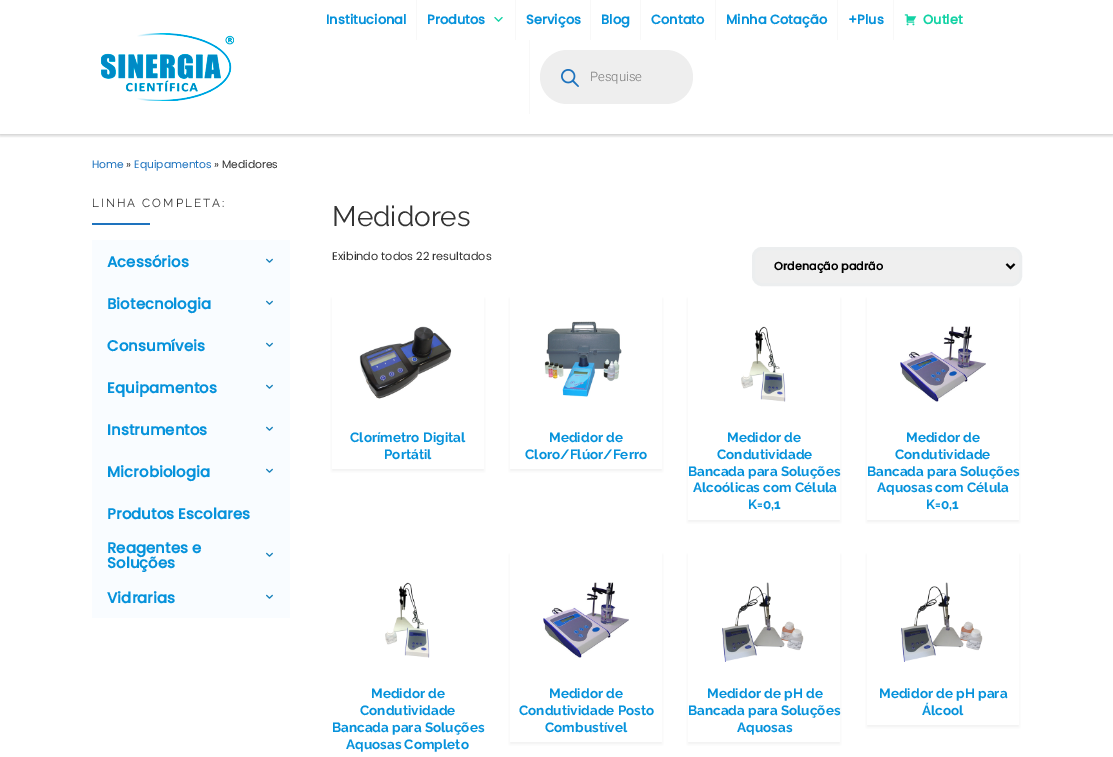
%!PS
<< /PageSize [1113 757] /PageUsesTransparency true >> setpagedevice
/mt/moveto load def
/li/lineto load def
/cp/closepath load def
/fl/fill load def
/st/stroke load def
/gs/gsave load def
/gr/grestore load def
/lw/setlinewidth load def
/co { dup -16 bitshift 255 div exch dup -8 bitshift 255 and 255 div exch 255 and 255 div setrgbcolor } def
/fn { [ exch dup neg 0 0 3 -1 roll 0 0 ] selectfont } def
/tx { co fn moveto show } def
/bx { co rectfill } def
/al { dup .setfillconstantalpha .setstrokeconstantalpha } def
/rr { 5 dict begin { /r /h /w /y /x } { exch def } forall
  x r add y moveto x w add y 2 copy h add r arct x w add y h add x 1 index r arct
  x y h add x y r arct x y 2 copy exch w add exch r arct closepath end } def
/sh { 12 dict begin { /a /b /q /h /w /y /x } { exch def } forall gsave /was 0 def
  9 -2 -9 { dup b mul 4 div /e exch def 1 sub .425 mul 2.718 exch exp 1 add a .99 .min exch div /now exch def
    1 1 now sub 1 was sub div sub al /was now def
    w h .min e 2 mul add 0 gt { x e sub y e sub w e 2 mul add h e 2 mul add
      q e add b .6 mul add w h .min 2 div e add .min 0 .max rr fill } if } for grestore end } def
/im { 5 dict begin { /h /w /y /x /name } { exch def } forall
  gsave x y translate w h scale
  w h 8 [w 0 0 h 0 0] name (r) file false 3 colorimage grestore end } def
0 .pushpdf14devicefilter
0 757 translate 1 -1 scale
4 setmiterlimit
0 0 1113 757 16#FFFFFF bx
gs
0 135 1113 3 rectclip
16#666666 co
0 2 1113 135 0 1 .08 sh
gr
0 134 1113 1 16#EFEFEF bx
gs
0 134 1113 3 rectclip
16#000000 co
0 0 1113 134 0 2.5 .2 sh
gr
(media/1.raw) 101 33 133 68 im
416 0 1 40 16#F8F8F8 bx
(media/2.raw) 494 17 9 5 im
515 0 1 40 16#F8F8F8 bx
590 0 1 40 16#F8F8F8 bx
640 0 1 40 16#F8F8F8 bx
715 0 1 40 16#F8F8F8 bx
837 0 1 40 16#F8F8F8 bx
893 0 1 40 16#F8F8F8 bx
(media/3.raw) 904 14 13 12 im
529 40 1 74 16#F8F8F8 bx
16#EEEEEE co
540 50 153 54 27 rr fl
(media/4.raw) 561 69 18 18 im
92 223 58 2 16#1E73BE bx
92 240 198 378 16#F9FCFF bx
(media/5.raw) 266 258 7 5 im
(media/5.raw) 266 300 7 5 im
(media/5.raw) 266 342 7 5 im
(media/5.raw) 266 384 7 5 im
(media/5.raw) 266 426 7 5 im
(media/5.raw) 266 468 7 5 im
(media/5.raw) 266 552 7 5 im
(media/5.raw) 266 594 7 5 im
16#EFEFEF co
753.5 248.5 267 36 8.5 rr gs fl gr
16#ECEEEF co
3 lw
st
16#000000 co
2 lw
1006.5 264 mt 1010.5 268 li 1014.5 264 li st
gs
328 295 mt 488 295 li 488 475 li 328 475 li cp 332 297 mt 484 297 li 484 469 li 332 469 li cp eoclip newpath
16#666666 co
332 299 152 172 0 1 .08 sh
gr
(media/6.raw) 359 326 93 73 im
gs
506 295 mt 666 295 li 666 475 li 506 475 li cp 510 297 mt 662 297 li 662 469 li 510 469 li cp eoclip newpath
16#666666 co
510 299 152 172 0 1 .08 sh
gr
(media/7.raw) 544 321 78 76 im
gs
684 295 mt 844 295 li 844 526 li 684 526 li cp 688 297 mt 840 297 li 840 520 li 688 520 li cp eoclip newpath
16#666666 co
688 299 152 223 0 1 .08 sh
gr
(media/8.raw) 741 326 45 76 im
gs
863 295 mt 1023 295 li 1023 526 li 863 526 li cp 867 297 mt 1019 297 li 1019 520 li 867 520 li cp eoclip newpath
16#666666 co
867 299 152 223 0 1 .08 sh
gr
(media/9.raw) 900 326 86 76 im
(media/10.raw) 385 582 45 76 im
gs
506 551 mt 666 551 li 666 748 li 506 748 li cp 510 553 mt 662 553 li 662 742 li 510 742 li cp eoclip newpath
16#666666 co
510 555 152 189 0 1 .08 sh
gr
(media/11.raw) 543 582 86 76 im
gs
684 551 mt 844 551 li 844 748 li 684 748 li cp 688 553 mt 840 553 li 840 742 li 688 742 li cp eoclip newpath
16#666666 co
688 555 152 189 0 1 .08 sh
gr
(media/12.raw) 722 582 82 80 im
gs
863 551 mt 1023 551 li 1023 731 li 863 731 li cp 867 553 mt 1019 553 li 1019 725 li 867 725 li cp eoclip newpath
16#666666 co
867 555 152 172 0 1 .08 sh
gr
(media/12.raw) 901 582 82 80 im
(Institucional) 326 24 /Poppins-Bold 13 16#0692DB tx
(Produtos) 427 24 /Poppins-Bold 13 16#0692DB tx
(Serviços) 526 24 /Poppins-Bold 13 16#0692DB tx
(Blog) 601 24 /Poppins-Bold 13 16#0692DB tx
(Contato) 651 24 /Poppins-Bold 13 16#0692DB tx
(Minha Cotação) 726 24 /Poppins-Bold 13 16#0692DB tx
(+Plus) 848 24 /Poppins-Bold 13 16#0692DB tx
(Outlet) 923 24 /Poppins-Bold 13 16#11D2A4 tx
(Pesquise) 590 81 /Roboto-Light 13 16#777777 tx
(Home) 92 168 /Poppins-Regular 10.75 16#1E73BE tx
(») 126 168 /Poppins-Regular 10.75 16#333333 tx
(Equipamentos) 134 168 /Poppins-Regular 10.75 16#1E73BE tx
(» Medidores) 214 168 /Poppins-Regular 10.75 16#333333 tx
/Raleway-Regular 11.75 fn
92 207 mt 2 0 (LINHA COMPLETA:) ashow
(Acessórios) 107 267 /Poppins-Bold 15 16#0692DB tx
(Biotecnologia) 107 309 /Poppins-Bold 15 16#0692DB tx
(Consumíveis) 107 351 /Poppins-Bold 15 16#0692DB tx
(Equipamentos) 107 393 /Poppins-Bold 15 16#0692DB tx
(Instrumentos) 107 435 /Poppins-Bold 15 16#0692DB tx
(Microbiologia) 107 477 /Poppins-Bold 15 16#0692DB tx
(Produtos Escolares) 107 519 /Poppins-Bold 15 16#0692DB tx
(Reagentes e) 107 553 /Poppins-Bold 15 16#0692DB tx
(Soluções) 107 568 /Poppins-Bold 15 16#0692DB tx
(Vidrarias) 107 603 /Poppins-Bold 15 16#0692DB tx
(Medidores) 332 226 /Raleway-Regular 28 16#333333 tx
(Exibindo todos 22 resultados) 332 260 /Poppins-Regular 11.25 16#333333 tx
(Ordenação padrão) 774 270 /Poppins-Bold 11.25 16#000000 tx
(Clorímetro Digital) 350 442 /Raleway-Bold 13.5 16#0692DB tx
(Portátil) 384 459 /Raleway-Bold 13.5 16#0692DB tx
(Medidor de) 549 442 /Raleway-Bold 13.5 16#0692DB tx
(Cloro/Flúor/Ferro) 525 459 /Raleway-Bold 13.5 16#0692DB tx
(Medidor de) 727 442 /Raleway-Bold 13.5 16#0692DB tx
(Condutividade) 717 459 /Raleway-Bold 13.5 16#0692DB tx
(Bancada para Soluções) 688 476 /Raleway-Bold 13.5 16#0692DB tx
(Alcoólicas com Célula) 693 492 /Raleway-Bold 13.5 16#0692DB tx
(K=0,1) 748 509 /Raleway-Bold 13.5 16#0692DB tx
(Medidor de) 906 442 /Raleway-Bold 13.5 16#0692DB tx
(Condutividade) 895 459 /Raleway-Bold 13.5 16#0692DB tx
(Bancada para Soluções) 867 476 /Raleway-Bold 13.5 16#0692DB tx
(Aquosas com Célula) 877 492 /Raleway-Bold 13.5 16#0692DB tx
(K=0,1) 926 509 /Raleway-Bold 13.5 16#0692DB tx
(Medidor de) 371 698 /Raleway-Bold 13.5 16#0692DB tx
(Condutividade) 360 715 /Raleway-Bold 13.5 16#0692DB tx
(Bancada para Soluções) 332 732 /Raleway-Bold 13.5 16#0692DB tx
(Aquosas Completo) 346 749 /Raleway-Bold 13.5 16#0692DB tx
(Medidor de) 549 698 /Raleway-Bold 13.5 16#0692DB tx
(Condutividade Posto) 519 715 /Raleway-Bold 13.5 16#0692DB tx
(Combustível) 545 732 /Raleway-Bold 13.5 16#0692DB tx
(Medidor de pH de) 707 698 /Raleway-Bold 13.5 16#0692DB tx
(Bancada para Soluções) 688 715 /Raleway-Bold 13.5 16#0692DB tx
(Aquosas) 737 732 /Raleway-Bold 13.5 16#0692DB tx
(Medidor de pH para) 879 698 /Raleway-Bold 13.5 16#0692DB tx
(Álcool) 922 715 /Raleway-Bold 13.5 16#0692DB tx
.poppdf14devicefilter showpage
